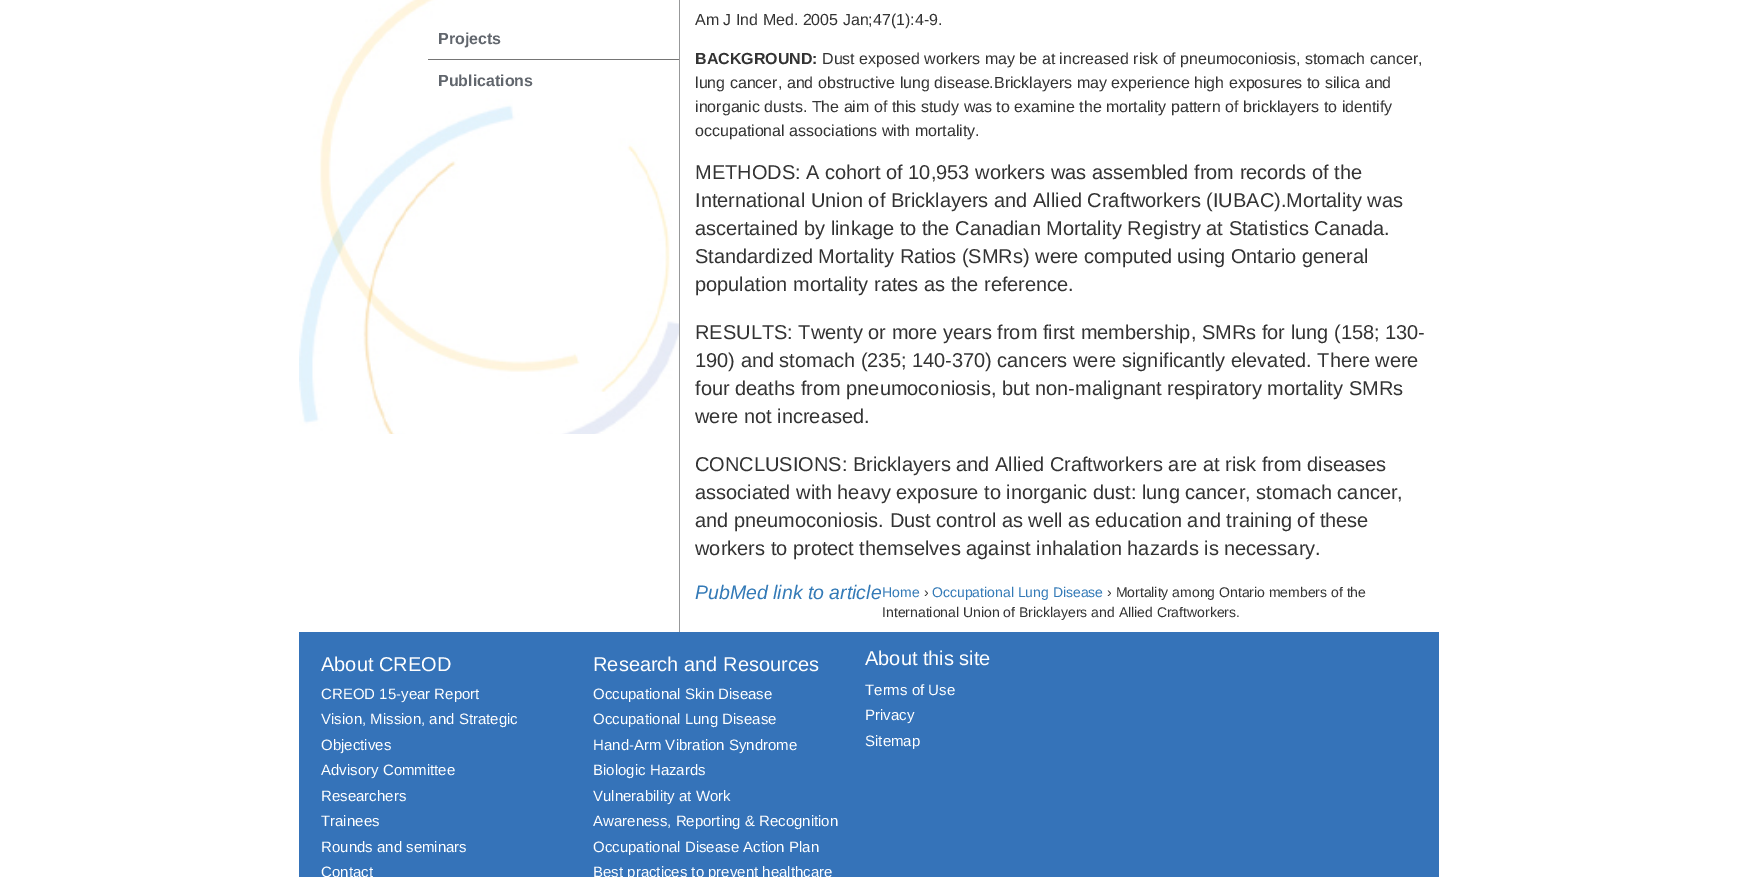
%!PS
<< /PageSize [1738 877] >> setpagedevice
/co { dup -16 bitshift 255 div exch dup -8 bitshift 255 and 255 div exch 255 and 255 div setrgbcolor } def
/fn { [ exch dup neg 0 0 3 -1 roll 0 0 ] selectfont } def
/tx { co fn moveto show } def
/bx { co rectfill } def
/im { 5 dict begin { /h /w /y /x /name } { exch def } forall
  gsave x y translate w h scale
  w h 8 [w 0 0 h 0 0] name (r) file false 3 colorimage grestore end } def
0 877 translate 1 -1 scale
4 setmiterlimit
0 0 1738 877 16#FFFFFF bx
(media/1.raw) 299 0 380 434 im
428 59 251 1 16#757575 bx
679 0 1 632 16#979899 bx
299 632 1140 245 16#3573B9 bx
(Projects) 438 44 /LiberationSans-Bold 16 16#61666D tx
(Publications) 438 86 /LiberationSans-Bold 16 16#61666D tx
(Am J Ind Med. 2005 Jan;47\(1\):4-9.) 695 25 /LiberationSans-Regular 16 16#333333 tx
(BACKGROUND:) 695 64 /LiberationSans-Bold 16 16#333333 tx
(Dust exposed workers may be at increased risk of pneumoconiosis, stomach cancer,) 822 64 /LiberationSans-Regular 16 16#333333 tx
(lung cancer, and obstructive lung disease.Bricklayers may experience high exposures to silica and) 695 88 /LiberationSans-Regular 16 16#333333 tx
(inorganic dusts. The aim of this study was to examine the mortality pattern of bricklayers to identify) 695 112 /LiberationSans-Regular 16 16#333333 tx
(occupational associations with mortality.) 695 136 /LiberationSans-Regular 16 16#333333 tx
(METHODS: A cohort of 10,953 workers was assembled from records of the) 695 179 /LiberationSans-Regular 20 16#333333 tx
(International Union of Bricklayers and Allied Craftworkers \(IUBAC\).Mortality was) 695 207 /LiberationSans-Regular 20 16#333333 tx
(ascertained by linkage to the Canadian Mortality Registry at Statistics Canada.) 695 235 /LiberationSans-Regular 20 16#333333 tx
(Standardized Mortality Ratios \(SMRs\) were computed using Ontario general) 695 263 /LiberationSans-Regular 20 16#333333 tx
(population mortality rates as the reference.) 695 291 /LiberationSans-Regular 20 16#333333 tx
(RESULTS: Twenty or more years from first membership, SMRs for lung \(158; 130-) 695 339 /LiberationSans-Regular 20 16#333333 tx
(190\) and stomach \(235; 140-370\) cancers were significantly elevated. There were) 695 367 /LiberationSans-Regular 20 16#333333 tx
(four deaths from pneumoconiosis, but non-malignant respiratory mortality SMRs) 695 395 /LiberationSans-Regular 20 16#333333 tx
(were not increased.) 695 423 /LiberationSans-Regular 20 16#333333 tx
(CONCLUSIONS: Bricklayers and Allied Craftworkers are at risk from diseases) 695 471 /LiberationSans-Regular 20 16#333333 tx
(associated with heavy exposure to inorganic dust: lung cancer, stomach cancer,) 695 499 /LiberationSans-Regular 20 16#333333 tx
(and pneumoconiosis. Dust control as well as education and training of these) 695 527 /LiberationSans-Regular 20 16#333333 tx
(workers to protect themselves against inhalation hazards is necessary.) 695 555 /LiberationSans-Regular 20 16#333333 tx
(PubMed link to article) 695 599 /LiberationSans-Italic 19.5 16#337AB7 tx
(Home) 882 597 /LiberationSans-Regular 14 16#337AB7 tx
(›) 924 597 /LiberationSans-Regular 14 16#333333 tx
(Occupational Lung Disease) 932 597 /LiberationSans-Regular 14 16#337AB7 tx
(› Mortality among Ontario members of the) 1107 597 /LiberationSans-Regular 14 16#333333 tx
(International Union of Bricklayers and Allied Craftworkers.) 882 617 /LiberationSans-Regular 14 16#333333 tx
(About CREOD) 321 671 /LiberationSans-Regular 20 16#FFFFFF tx
(CREOD 15-year Report) 321 699 /LiberationSans-Regular 15 16#FFFFFF tx
(Vision, Mission, and Strategic) 321 724 /LiberationSans-Regular 15 16#FFFFFF tx
(Objectives) 321 750 /LiberationSans-Regular 15 16#FFFFFF tx
(Advisory Committee) 321 775 /LiberationSans-Regular 15 16#FFFFFF tx
(Researchers) 321 801 /LiberationSans-Regular 15 16#FFFFFF tx
(Trainees) 321 826 /LiberationSans-Regular 15 16#FFFFFF tx
(Rounds and seminars) 321 852 /LiberationSans-Regular 15 16#FFFFFF tx
(Contact) 321 877 /LiberationSans-Regular 15 16#FFFFFF tx
(Research and Resources) 593 671 /LiberationSans-Regular 20 16#FFFFFF tx
(Occupational Skin Disease) 593 699 /LiberationSans-Regular 15 16#FFFFFF tx
(Occupational Lung Disease) 593 724 /LiberationSans-Regular 15 16#FFFFFF tx
(Hand-Arm Vibration Syndrome) 593 750 /LiberationSans-Regular 15 16#FFFFFF tx
(Biologic Hazards) 593 775 /LiberationSans-Regular 15 16#FFFFFF tx
(Vulnerability at Work) 593 801 /LiberationSans-Regular 15 16#FFFFFF tx
(Awareness, Reporting & Recognition) 593 826 /LiberationSans-Regular 15 16#FFFFFF tx
(Occupational Disease Action Plan) 593 852 /LiberationSans-Regular 15 16#FFFFFF tx
(Best practices to prevent healthcare) 593 877 /LiberationSans-Regular 15 16#FFFFFF tx
(About this site) 865 665 /LiberationSans-Regular 20 16#FFFFFF tx
(Terms of Use) 865 695 /LiberationSans-Regular 15 16#FFFFFF tx
(Privacy) 865 720 /LiberationSans-Regular 15 16#FFFFFF tx
(Sitemap) 865 746 /LiberationSans-Regular 15 16#FFFFFF tx
showpage
